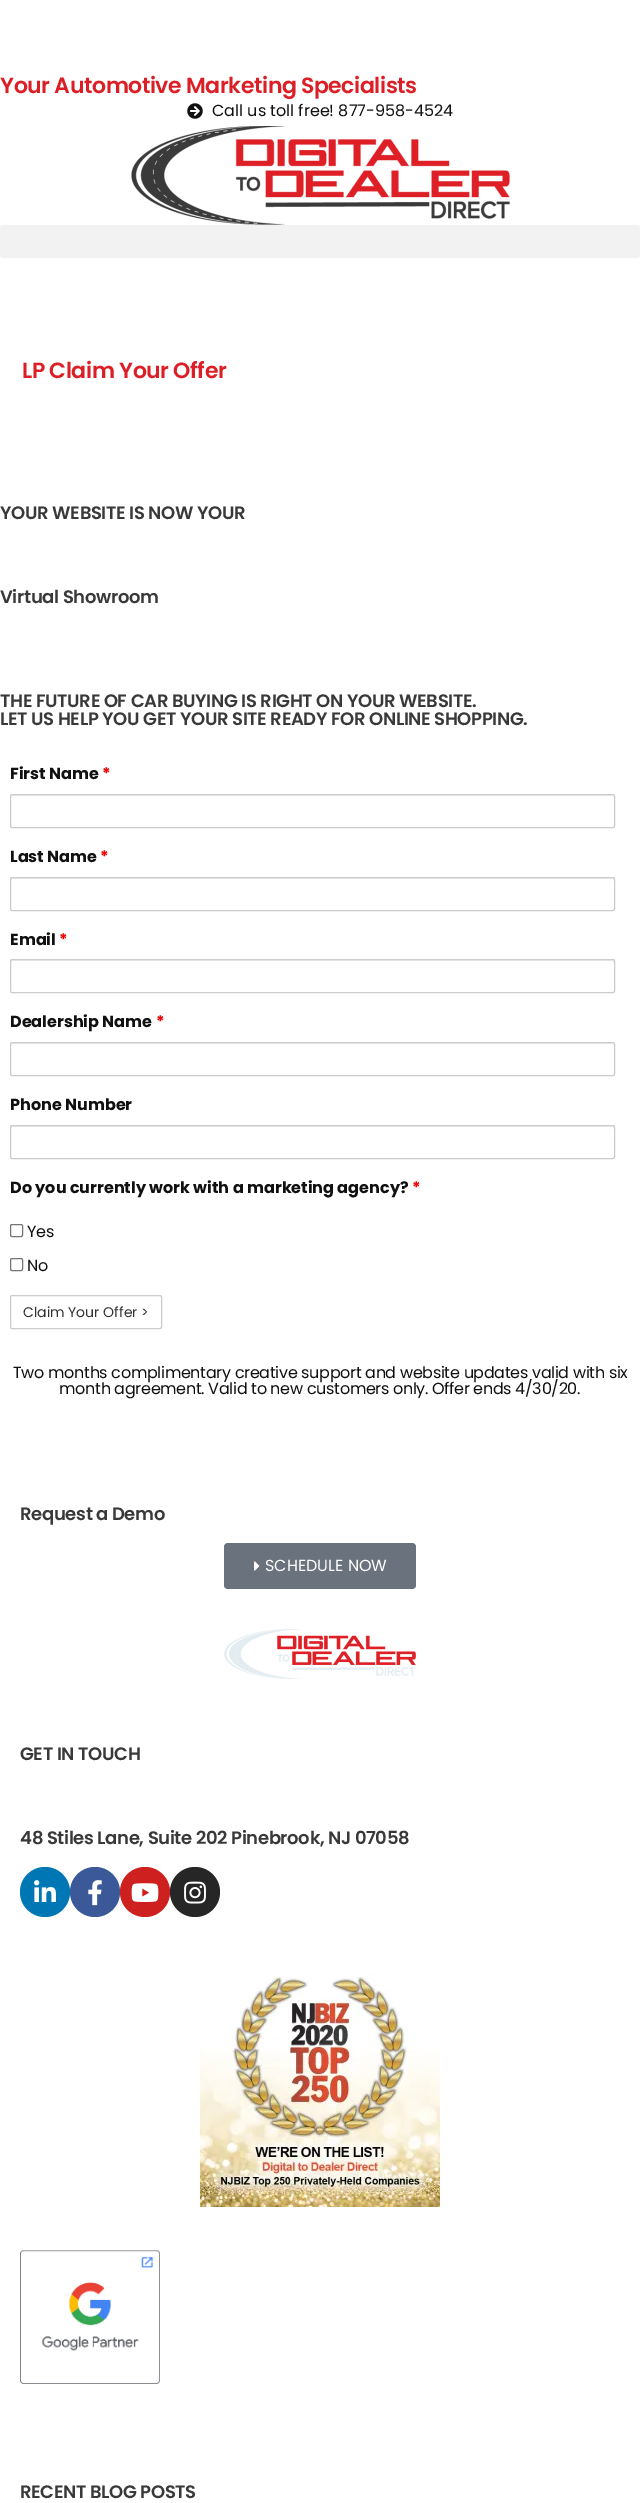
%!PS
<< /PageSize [640 2503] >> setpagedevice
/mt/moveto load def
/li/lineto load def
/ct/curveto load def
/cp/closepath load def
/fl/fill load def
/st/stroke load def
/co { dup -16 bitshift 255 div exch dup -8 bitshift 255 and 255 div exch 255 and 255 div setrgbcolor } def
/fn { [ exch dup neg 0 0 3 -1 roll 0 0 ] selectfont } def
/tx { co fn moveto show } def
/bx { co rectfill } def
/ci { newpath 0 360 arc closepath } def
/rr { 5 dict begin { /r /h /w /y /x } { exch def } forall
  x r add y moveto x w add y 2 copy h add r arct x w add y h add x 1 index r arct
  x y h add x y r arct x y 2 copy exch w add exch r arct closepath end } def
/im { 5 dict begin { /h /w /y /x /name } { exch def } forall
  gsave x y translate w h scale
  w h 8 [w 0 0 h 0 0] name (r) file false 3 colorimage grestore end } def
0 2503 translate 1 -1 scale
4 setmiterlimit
0 0 640 2503 16#FFFFFF bx
(media/1.raw) 187 103 16 16 im
(media/2.raw) 131 126 379 99 im
16#F2F2F2 co
0 225 640 33 3 rr fl
16#ECECEC co
12 796 mt 613 796 li 614 799 li 614 798 615 796 613 795 ct 12 795 li 11 795 11 797 11 798 ct cp fl
16#CCCCCC co
10.5 794.5 604 33 1.5 rr st
16#ECECEC co
12 879 mt 613 879 li 614 882 li 614 881 615 879 613 878 ct 12 878 li 11 878 11 880 11 881 ct cp fl
16#CCCCCC co
10.5 877.5 604 33 1.5 rr st
16#ECECEC co
12 961 mt 613 961 li 614 964 li 614 963 615 961 613 960 ct 12 960 li 11 960 11 962 11 963 ct cp fl
16#CCCCCC co
10.5 959.5 604 33 1.5 rr st
16#ECECEC co
12 1044 mt 613 1044 li 614 1047 li 614 1046 615 1044 613 1043 ct 12 1043 li 11 1043 11 1045 11 1046 ct cp fl
16#CCCCCC co
10.5 1042.5 604 33 1.5 rr st
16#ECECEC co
12 1127 mt 613 1127 li 614 1130 li 614 1129 615 1127 613 1126 ct 12 1126 li 11 1126 11 1128 11 1129 ct cp fl
16#CCCCCC co
10.5 1125.5 604 33 1.5 rr st
16#767676 co
10.5 1224.5 12 12 1.5 rr st
10.5 1258.5 12 12 1.5 rr st
16#CCCCCC co
10.5 1295.5 151 33 1.5 rr st
16#69727D co
224 1543 192 46 4 rr fl
(media/3.raw) 254 1561 6 10 im
(media/4.raw) 224 1629 192 50 im
16#0077B5 co
45 1892 25 ci fl
(media/5.raw) 34 1880 22 22 im
16#3B5998 co
95 1892 25 ci fl
(media/6.raw) 88 1880 14 26 im
16#CD201F co
145 1892 25 ci fl
(media/7.raw) 131 1883 28 19 im
16#262626 co
195 1892 25 ci fl
(media/8.raw) 184 1881 22 23 im
(media/9.raw) 200 1974 240 233 im
(media/10.raw) 20 2250 140 134 im
/Poppins-SemiBold 22 fn
16#DC1F26 co
0 93 mt -.45 0 (Your Automotive Marketing Specialists) ashow
(Call us toll free! 877-958-4524) 212 116 /Poppins-Regular 16 16#111111 tx
/Poppins-SemiBold 22 fn
16#DC1F26 co
22 378 mt -.45 0 (LP Claim Your Offer) ashow
/Poppins-SemiBold 18 fn
16#393939 co
0 519 mt -.35 0 (YOUR WEBSITE IS NOW YOUR) ashow
0 603 mt -.35 0 (Virtual Showroom) ashow
0 707 mt -.35 0 (THE FUTURE OF CAR BUYING IS RIGHT ON YOUR WEBSITE.) ashow
0 725 mt -.35 0 (LET US HELP YOU GET YOUR SITE READY FOR ONLINE SHOPPING.) ashow
(First Name) 10 779 /Poppins-Bold 16 16#111111 tx
(*) 102 779 /Poppins-Bold 16 16#EE0000 tx
(Last Name) 10 862 /Poppins-Bold 16 16#111111 tx
(*) 100 862 /Poppins-Bold 16 16#EE0000 tx
(Email) 10 945 /Poppins-Bold 16 16#111111 tx
(*) 59 945 /Poppins-Bold 16 16#EE0000 tx
(Dealership Name) 10 1027 /Poppins-Bold 16 16#111111 tx
(*) 156 1027 /Poppins-Bold 16 16#EE0000 tx
(Phone Number) 10 1110 /Poppins-Bold 16 16#111111 tx
(Do you currently work with a marketing agency?) 10 1193 /Poppins-Bold 16 16#111111 tx
(*) 412 1193 /Poppins-Bold 16 16#EE0000 tx
(Yes) 27 1237 /Poppins-Regular 16 16#111111 tx
(No) 27 1271 /Poppins-Regular 16 16#111111 tx
(Claim Your Offer >) 23 1317 /Poppins-Regular 14 16#333333 tx
/Poppins-Regular 16 fn
16#111111 co
13 1378 mt -.32 0 (Two months complimentary creative support and website updates valid with six) ashow
59 1394 mt -.32 0 (month agreement. Valid to new customers only. Offer ends 4/30/20.) ashow
/Poppins-SemiBold 18 fn
16#393939 co
20 1520 mt -.35 0 (Request a Demo) ashow
(SCHEDULE NOW) 265 1571 /Poppins-Regular 16 16#FFFFFF tx
/Poppins-SemiBold 18 fn
16#393939 co
20 1760 mt -.35 0 (GET IN TOUCH) ashow
20 1844 mt -.35 0 (48 Stiles Lane, Suite 202 Pinebrook, NJ 07058) ashow
20 2498 mt -.35 0 (RECENT BLOG POSTS) ashow
showpage
